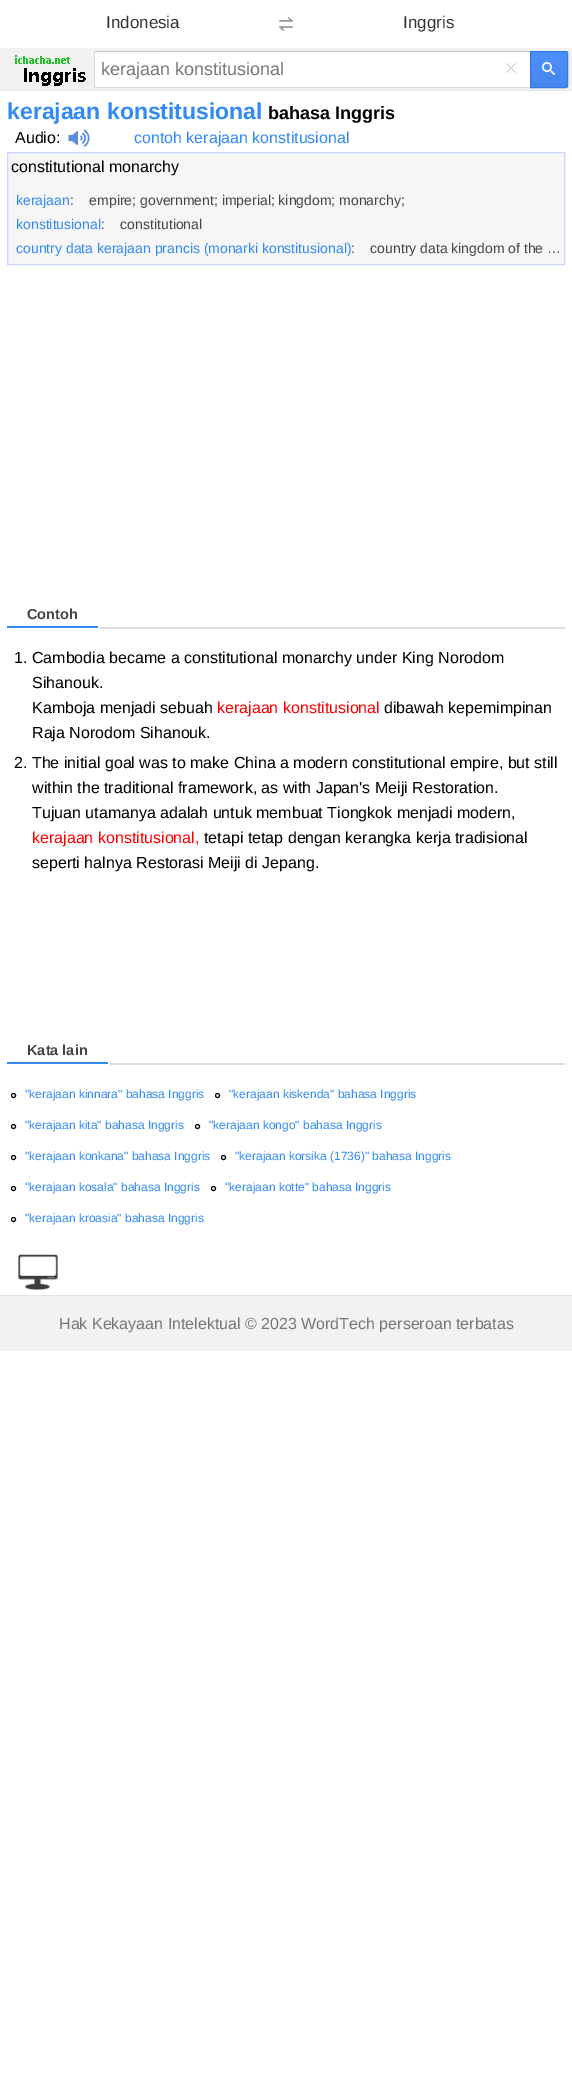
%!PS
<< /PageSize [572 2091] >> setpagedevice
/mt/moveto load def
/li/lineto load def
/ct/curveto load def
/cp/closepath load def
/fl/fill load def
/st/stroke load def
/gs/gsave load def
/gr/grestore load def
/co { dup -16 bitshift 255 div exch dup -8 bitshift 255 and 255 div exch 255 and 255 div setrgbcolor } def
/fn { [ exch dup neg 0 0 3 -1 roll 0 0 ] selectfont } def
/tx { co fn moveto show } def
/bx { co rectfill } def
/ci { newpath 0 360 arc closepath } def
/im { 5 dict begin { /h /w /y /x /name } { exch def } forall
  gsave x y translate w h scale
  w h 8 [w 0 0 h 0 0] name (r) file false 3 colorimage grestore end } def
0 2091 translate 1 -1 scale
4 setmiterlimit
0 0 572 2091 16#FFFFFF bx
gs 0 48 mt 572 48 li 572 90 li 0 90 li cp clip newpath 100 -40 translate 120 120 scale
<< /ShadingType 3 /ColorSpace /DeviceRGB /Coords [0 0 0 0 0 1] /Extend [true true] /Function << /FunctionType 2 /Domain [0 1] /C0 [.98 .98 .98] /C1 [.945 .945 .945] /N 1 >> >> shfill gr
0 90 572 1 16#E5E5E5 bx
(media/1.raw) 279 17 14 14 im
(media/2.raw) 15 55 71 31 im
95 52 435 35 16#FFFFFF bx
94 51 436 1 16#C0C0C0 bx
94 87 436 1 16#D9D9D9 bx
94 51 1 37 16#D9D9D9 bx
gs 531 52 mt 568 52 li 568 87 li 531 87 li cp clip newpath
<< /ShadingType 2 /ColorSpace /DeviceRGB /Coords [531 52 531 87] /Extend [true true] /Function << /FunctionType 2 /Domain [0 1] /C0 [.302 .565 .996] /C1 [.278 .529 .929] /N 1 >> >> shfill gr
16#3079ED co
530.5 51.5 mt 566 51.5 li 567 51.5 567.5 52 567.5 53 ct 567.5 86 li 567.5 87 567 87.5 566 87.5 ct 530.5 87.5 li cp st
(media/3.raw) 542 62 13 13 im
(media/4.raw) 68 129 22 18 im
16#F6F6F6 co
7.5 152.5 mt 564.5 152.5 li 564.5 264.5 li 7.5 264.5 li cp gs fl gr
16#CCD5FF co
st
100 627 465 2 16#DDDDDD bx
7 626 91 2 16#328AF4 bx
110 1063 455 2 16#DDDDDD bx
7 1062 101 2 16#328AF4 bx
16#000000 co
13.5 1095.5 2 ci st
217.5 1095.5 2 ci st
13.5 1126.5 2 ci st
197.5 1126.5 2 ci st
13.5 1157.5 2 ci st
223.5 1157.5 2 ci st
13.5 1188.5 2 ci st
213.5 1188.5 2 ci st
13.5 1219.5 2 ci st
(media/5.raw) 18 1254 40 36 im
0 1296 572 55 16#F2F2F2 bx
0 1295 572 1 16#E4E4E4 bx
(Indonesia) 106 28 /LiberationSans-Regular 17 16#333333 tx
(Inggris) 403 28 /LiberationSans-Regular 17 16#333333 tx
(kerajaan konstitusional) 101 75 /LiberationSans-Regular 18 16#777777 tx
(×) 504 76 /LiberationSans-Regular 24 16#D9D9D9 tx
(kerajaan konstitusional) 7 119 /LiberationSans-Bold 23 16#328AF4 tx
(bahasa Inggris) 268 119 /LiberationSans-Bold 18 16#000000 tx
(Audio:) 15 143 /LiberationSans-Regular 16 16#000000 tx
(contoh kerajaan konstitusional) 134 143 /LiberationSans-Regular 16 16#328AF4 tx
(constitutional monarchy) 11 172 /LiberationSans-Regular 16 16#000000 tx
(kerajaan) 16 205 /LiberationSans-Regular 14 16#328AF4 tx
(:    empire; government; imperial; kingdom; monarchy;) 70 205 /LiberationSans-Regular 14 16#454545 tx
(konstitusional) 16 229 /LiberationSans-Regular 14 16#328AF4 tx
(:    constitutional) 101 229 /LiberationSans-Regular 14 16#454545 tx
(country data kerajaan prancis \(monarki konstitusional\)) 16 253 /LiberationSans-Regular 14 16#328AF4 tx
(:    country data kingdom of the …) 351 253 /LiberationSans-Regular 14 16#454545 tx
(Contoh) 27 619 /LiberationSans-Bold 14.5 16#454545 tx
(1. Cambodia became a constitutional monarchy under King Norodom) 14 663 /LiberationSans-Regular 16 16#000000 tx
(Sihanouk.) 32 688 /LiberationSans-Regular 16 16#000000 tx
(Kamboja menjadi sebuah) 32 713 /LiberationSans-Regular 16 16#000000 tx
(kerajaan konstitusional) 217 713 /LiberationSans-Regular 16 16#FF0000 tx
(dibawah kepemimpinan) 384 713 /LiberationSans-Regular 16 16#000000 tx
(Raja Norodom Sihanouk.) 32 738 /LiberationSans-Regular 16 16#000000 tx
(2. The initial goal was to make China a modern constitutional empire, but still) 14 768 /LiberationSans-Regular 16 16#000000 tx
(within the traditional framework, as with Japan's Meiji Restoration.) 32 793 /LiberationSans-Regular 16 16#000000 tx
(Tujuan utamanya adalah untuk membuat Tiongkok menjadi modern,) 32 818 /LiberationSans-Regular 16 16#000000 tx
(kerajaan konstitusional,) 32 843 /LiberationSans-Regular 16 16#FF0000 tx
(tetapi tetap dengan kerangka kerja tradisional) 204 843 /LiberationSans-Regular 16 16#000000 tx
(seperti halnya Restorasi Meiji di Jepang.) 32 868 /LiberationSans-Regular 16 16#000000 tx
(Kata lain) 27 1055 /LiberationSans-Bold 14.5 16#454545 tx
("kerajaan kinnara" bahasa Inggris) 25 1098 /LiberationSans-Regular 12 16#328AF4 tx
("kerajaan kiskenda" bahasa Inggris) 229 1098 /LiberationSans-Regular 12 16#328AF4 tx
("kerajaan kita" bahasa Inggris) 25 1129 /LiberationSans-Regular 12 16#328AF4 tx
("kerajaan kongo" bahasa Inggris) 209 1129 /LiberationSans-Regular 12 16#328AF4 tx
("kerajaan konkana" bahasa Inggris) 25 1160 /LiberationSans-Regular 12 16#328AF4 tx
("kerajaan korsika \(1736\)" bahasa Inggris) 235 1160 /LiberationSans-Regular 12 16#328AF4 tx
("kerajaan kosala" bahasa Inggris) 25 1191 /LiberationSans-Regular 12 16#328AF4 tx
("kerajaan kotte" bahasa Inggris) 225 1191 /LiberationSans-Regular 12 16#328AF4 tx
("kerajaan kroasia" bahasa Inggris) 25 1222 /LiberationSans-Regular 12 16#328AF4 tx
(Hak Kekayaan Intelektual © 2023 WordTech perseroan terbatas) 59 1329 /LiberationSans-Regular 16 16#777777 tx
showpage
